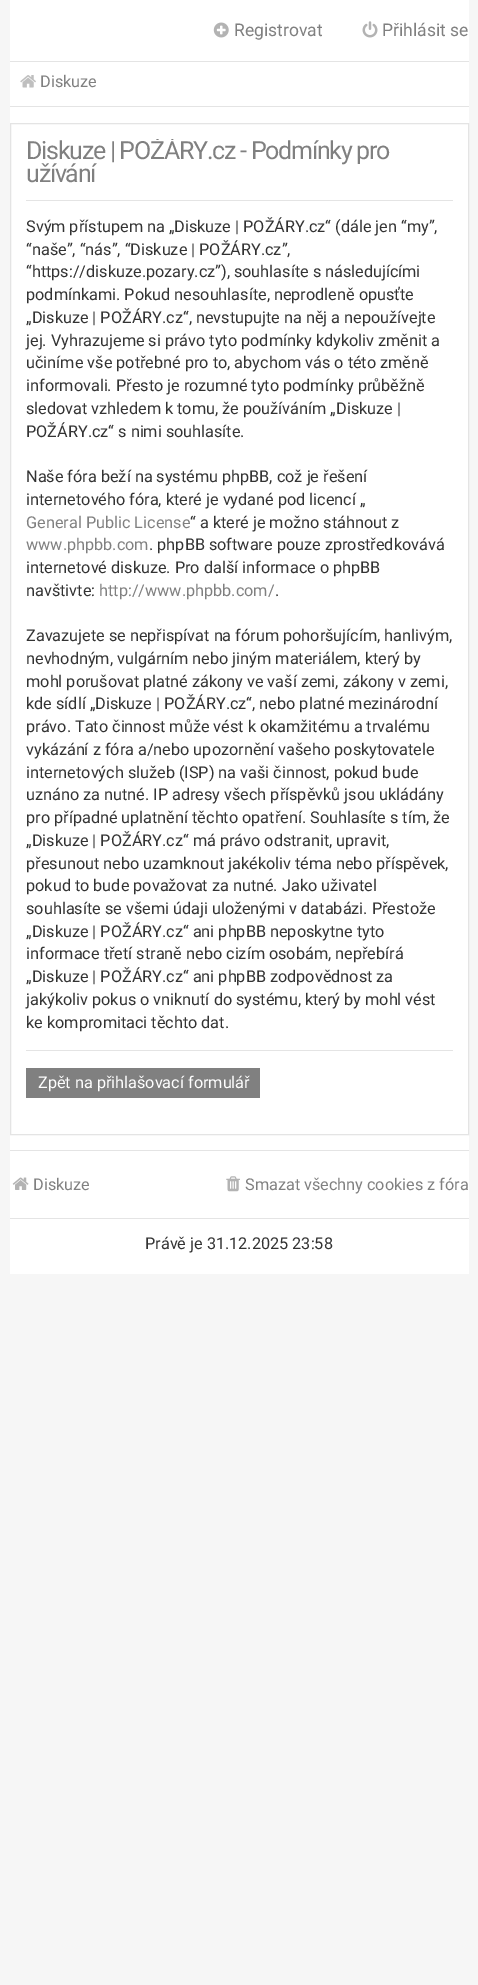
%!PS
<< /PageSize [478 1985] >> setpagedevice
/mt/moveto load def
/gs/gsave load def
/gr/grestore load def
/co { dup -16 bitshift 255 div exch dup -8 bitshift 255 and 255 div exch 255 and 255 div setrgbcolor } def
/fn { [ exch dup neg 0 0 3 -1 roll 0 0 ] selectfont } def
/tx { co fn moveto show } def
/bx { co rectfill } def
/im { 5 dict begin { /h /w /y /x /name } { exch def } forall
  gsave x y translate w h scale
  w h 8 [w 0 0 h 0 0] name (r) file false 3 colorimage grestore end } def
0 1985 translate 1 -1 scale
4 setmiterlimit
0 0 478 1985 16#F6F6F6 bx
10 0 459 1274 16#FFFFFF bx
(media/1.raw) 213 22 16 16 im
(media/2.raw) 362 21 16 17 im
10 61 459 1 16#E4E4E4 bx
10 106 459 1 16#E4E4E4 bx
(media/3.raw) 20 75 16 13 im
10.5 123.5 458 1011 rectstroke
26 200 427 1 16#E4E4E4 bx
26 1050 427 1 16#E4E4E4 bx
26 1068 234 30 16#808080 bx
10 1150 459 1 16#E4E4E4 bx
10 1218 459 1 16#E4E4E4 bx
(media/4.raw) 12 1177 17 13 im
(media/5.raw) 226 1176 14 16 im
(Registrovat) 234 36 /Roboto-Regular 17.5 16#808080 tx
(Přihlásit se) 382 36 /Roboto-Regular 17.5 16#808080 tx
(Diskuze) 40 87 /Roboto-Regular 16.25 16#808080 tx
gs
26 139 427 980 rectclip
/Roboto-Regular 25 fn
26 159 mt -1.25 0 (Diskuze | POŽÁRY.cz - Podmínky pro) ashow
gr
/Roboto-Regular 25 fn
26 182 mt -1.25 0 (užívání) ashow
(Svým přístupem na „Diskuze | POŽÁRY.cz“ \(dále jen “my”,) 26 232 /Roboto-Regular 16.25 16#333333 tx
(“naše”, “nás”, “Diskuze | POŽÁRY.cz”,) 26 255 /Roboto-Regular 16.25 16#333333 tx
(“https://diskuze.pozary.cz”\), souhlasíte s následujícími) 26 277 /Roboto-Regular 16.25 16#333333 tx
(podmínkami. Pokud nesouhlasíte, neprodleně opusťte) 26 300 /Roboto-Regular 16.25 16#333333 tx
(„Diskuze | POŽÁRY.cz“, nevstupujte na něj a nepoužívejte) 26 323 /Roboto-Regular 16.25 16#333333 tx
(jej. Vyhrazujeme si právo tyto podmínky kdykoliv změnit a) 26 346 /Roboto-Regular 16.25 16#333333 tx
(učiníme vše potřebné pro to, abychom vás o této změně) 26 368 /Roboto-Regular 16.25 16#333333 tx
(informovali. Přesto je rozumné tyto podmínky průběžně) 26 391 /Roboto-Regular 16.25 16#333333 tx
(sledovat vzhledem k tomu, že používáním „Diskuze |) 26 414 /Roboto-Regular 16.25 16#333333 tx
(POŽÁRY.cz“ s nimi souhlasíte.) 26 437 /Roboto-Regular 16.25 16#333333 tx
(Naše fóra beží na systému phpBB, což je řešení) 26 482 /Roboto-Regular 16.25 16#333333 tx
(internetového fóra, které je vydané pod licencí „) 26 505 /Roboto-Regular 16.25 16#333333 tx
(General Public License) 26 528 /Roboto-Regular 16.25 16#808080 tx
(“ a které je možno stáhnout z) 190 528 /Roboto-Regular 16.25 16#333333 tx
(www.phpbb.com) 26 550 /Roboto-Regular 16.25 16#808080 tx
(. phpBB software pouze zprostředkovává) 149 550 /Roboto-Regular 16.25 16#333333 tx
(internetové diskuze. Pro další informace o phpBB) 26 573 /Roboto-Regular 16.25 16#333333 tx
(navštivte:) 26 596 /Roboto-Regular 16.25 16#333333 tx
(http://www.phpbb.com/) 99 596 /Roboto-Regular 16.25 16#808080 tx
(.) 275 596 /Roboto-Regular 16.25 16#333333 tx
(Zavazujete se nepřispívat na fórum pohoršujícím, hanlivým,) 26 641 /Roboto-Regular 16.25 16#333333 tx
(nevhodným, vulgárním nebo jiným materiálem, který by) 26 664 /Roboto-Regular 16.25 16#333333 tx
(mohl porušovat platné zákony ve vaší zemi, zákony v zemi,) 26 687 /Roboto-Regular 16.25 16#333333 tx
(kde sídlí „Diskuze | POŽÁRY.cz“, nebo platné mezinárodní) 26 709 /Roboto-Regular 16.25 16#333333 tx
(právo. Tato činnost může vést k okamžitému a trvalému) 26 732 /Roboto-Regular 16.25 16#333333 tx
(vykázání z fóra a/nebo upozornění vašeho poskytovatele) 26 755 /Roboto-Regular 16.25 16#333333 tx
(internetových služeb \(ISP\) na vaši činnost, pokud bude) 26 778 /Roboto-Regular 16.25 16#333333 tx
(uznáno za nutné. IP adresy všech příspěvků jsou ukládány) 26 800 /Roboto-Regular 16.25 16#333333 tx
(pro případné uplatnění těchto opatření. Souhlasíte s tím, že) 26 823 /Roboto-Regular 16.25 16#333333 tx
(„Diskuze | POŽÁRY.cz“ má právo odstranit, upravit,) 26 846 /Roboto-Regular 16.25 16#333333 tx
(přesunout nebo uzamknout jakékoliv téma nebo příspěvek,) 26 869 /Roboto-Regular 16.25 16#333333 tx
(pokud to bude považovat za nutné. Jako uživatel) 26 891 /Roboto-Regular 16.25 16#333333 tx
(souhlasíte se všemi údaji uloženými v databázi. Přestože) 26 914 /Roboto-Regular 16.25 16#333333 tx
(„Diskuze | POŽÁRY.cz“ ani phpBB neposkytne tyto) 26 937 /Roboto-Regular 16.25 16#333333 tx
(informace třetí straně nebo cizím osobám, nepřebírá) 26 959 /Roboto-Regular 16.25 16#333333 tx
(„Diskuze | POŽÁRY.cz“ ani phpBB zodpovědnost za) 26 982 /Roboto-Regular 16.25 16#333333 tx
(jakýkoliv pokus o vniknutí do systému, který by mohl vést) 26 1005 /Roboto-Regular 16.25 16#333333 tx
(ke kompromitaci těchto dat.) 26 1028 /Roboto-Regular 16.25 16#333333 tx
(Zpět na přihlašovací formulář) 38 1088 /Roboto-Regular 16.25 16#FFFFFF tx
(Diskuze) 33 1190 /Roboto-Regular 16.25 16#808080 tx
(Smazat všechny cookies z fóra) 245 1190 /Roboto-Regular 16.25 16#808080 tx
(Právě je 31.12.2025 23:58) 145 1249 /Roboto-Regular 16.25 16#333333 tx
showpage
